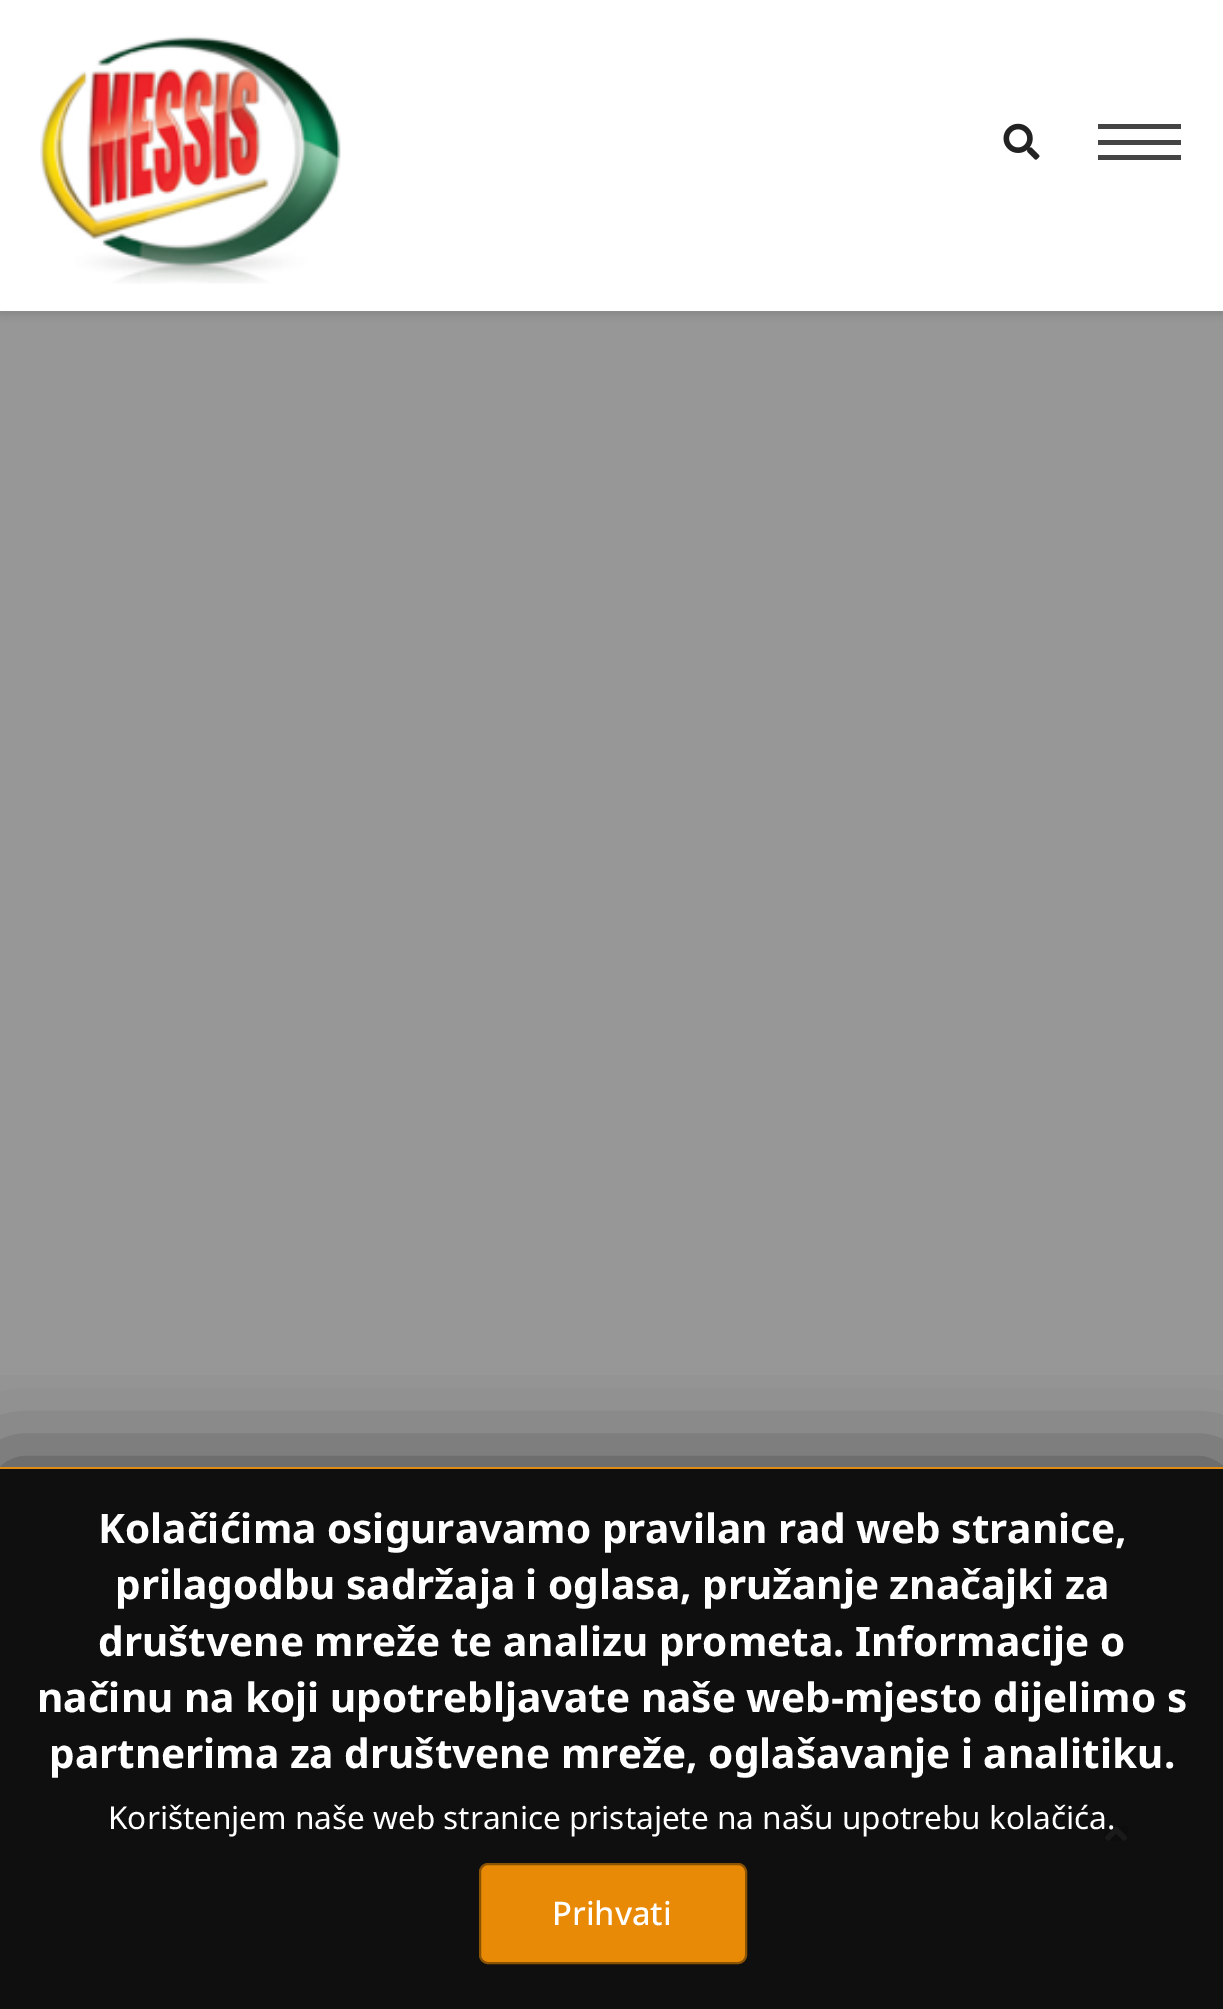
%!PS
<< /PageSize [1223 2009] /PageUsesTransparency true >> setpagedevice
/fl/fill load def
/st/stroke load def
/gs/gsave load def
/gr/grestore load def
/lw/setlinewidth load def
/co { dup -16 bitshift 255 div exch dup -8 bitshift 255 and 255 div exch 255 and 255 div setrgbcolor } def
/fn { [ exch dup neg 0 0 3 -1 roll 0 0 ] selectfont } def
/tx { co fn moveto show } def
/bx { co rectfill } def
/al { dup .setfillconstantalpha .setstrokeconstantalpha } def
/rr { 5 dict begin { /r /h /w /y /x } { exch def } forall
  x r add y moveto x w add y 2 copy h add r arct x w add y h add x 1 index r arct
  x y h add x y r arct x y 2 copy exch w add exch r arct closepath end } def
/sh { 12 dict begin { /a /b /q /h /w /y /x } { exch def } forall gsave /was 0 def
  9 -2 -9 { dup b mul 4 div /e exch def 1 sub .425 mul 2.718 exch exp 1 add a .99 .min exch div /now exch def
    1 1 now sub 1 was sub div sub al /was now def
    w h .min e 2 mul add 0 gt { x e sub y e sub w e 2 mul add h e 2 mul add
      q e add b .6 mul add w h .min 2 div e add .min 0 .max rr fill } if } for grestore end } def
/im { 5 dict begin { /h /w /y /x /name } { exch def } forall
  gsave x y translate w h scale
  w h 8 [w 0 0 h 0 0] name (r) file false 3 colorimage grestore end } def
0 .pushpdf14devicefilter
0 2009 translate 1 -1 scale
4 setmiterlimit
0 0 1223 2009 16#979797 bx
16#000000 co
0 5 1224 310 0 3.5 .1 sh
0 0 1223 311 16#FFFFFF bx
(media/1.raw) 40 35 301 249 im
(media/2.raw) 1003 123 37 37 im
1098 124 83 5 16#444444 bx
1098 140 83 5 16#444444 bx
1098 155 83 5 16#444444 bx
0 1469 1223 540 16#0F0F0F bx
(media/3.raw) 1104 1826 24 15 im
gs
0 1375 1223 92 rectclip
16#444444 co
0 1467 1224 542 0 45 1 sh
gr
0 1467 1223 2 16#E08B14 bx
16#E88A05 co
480 1864 266 99 8 rr gs fl gr
16#8A5203 co
2 lw
st
(Kolačićima osiguravamo pravilan rad web stranice,) 98 1543 /NotoSans-Bold 40.5 16#FFFFFF tx
(prilagodbu sadržaja i oglasa, pružanje značajki za) 115 1599 /NotoSans-Bold 40.5 16#FFFFFF tx
(društvene mreže te analizu prometa. Informacije o) 98 1656 /NotoSans-Bold 40.5 16#FFFFFF tx
(načinu na koji upotrebljavate naše web-mjesto dijelimo s) 37 1712 /NotoSans-Bold 40.5 16#FFFFFF tx
(partnerima za društvene mreže, oglašavanje i analitiku.) 49 1768 /NotoSans-Bold 40.5 16#FFFFFF tx
(Korištenjem naše web stranice pristajete na našu upotrebu kolačića.) 108 1829 /NotoSans-Regular 31.5 16#FFFFFF tx
(Prihvati) 552 1925 /NotoSans-Medium 32.5 16#FFFFFF tx
.poppdf14devicefilter showpage
